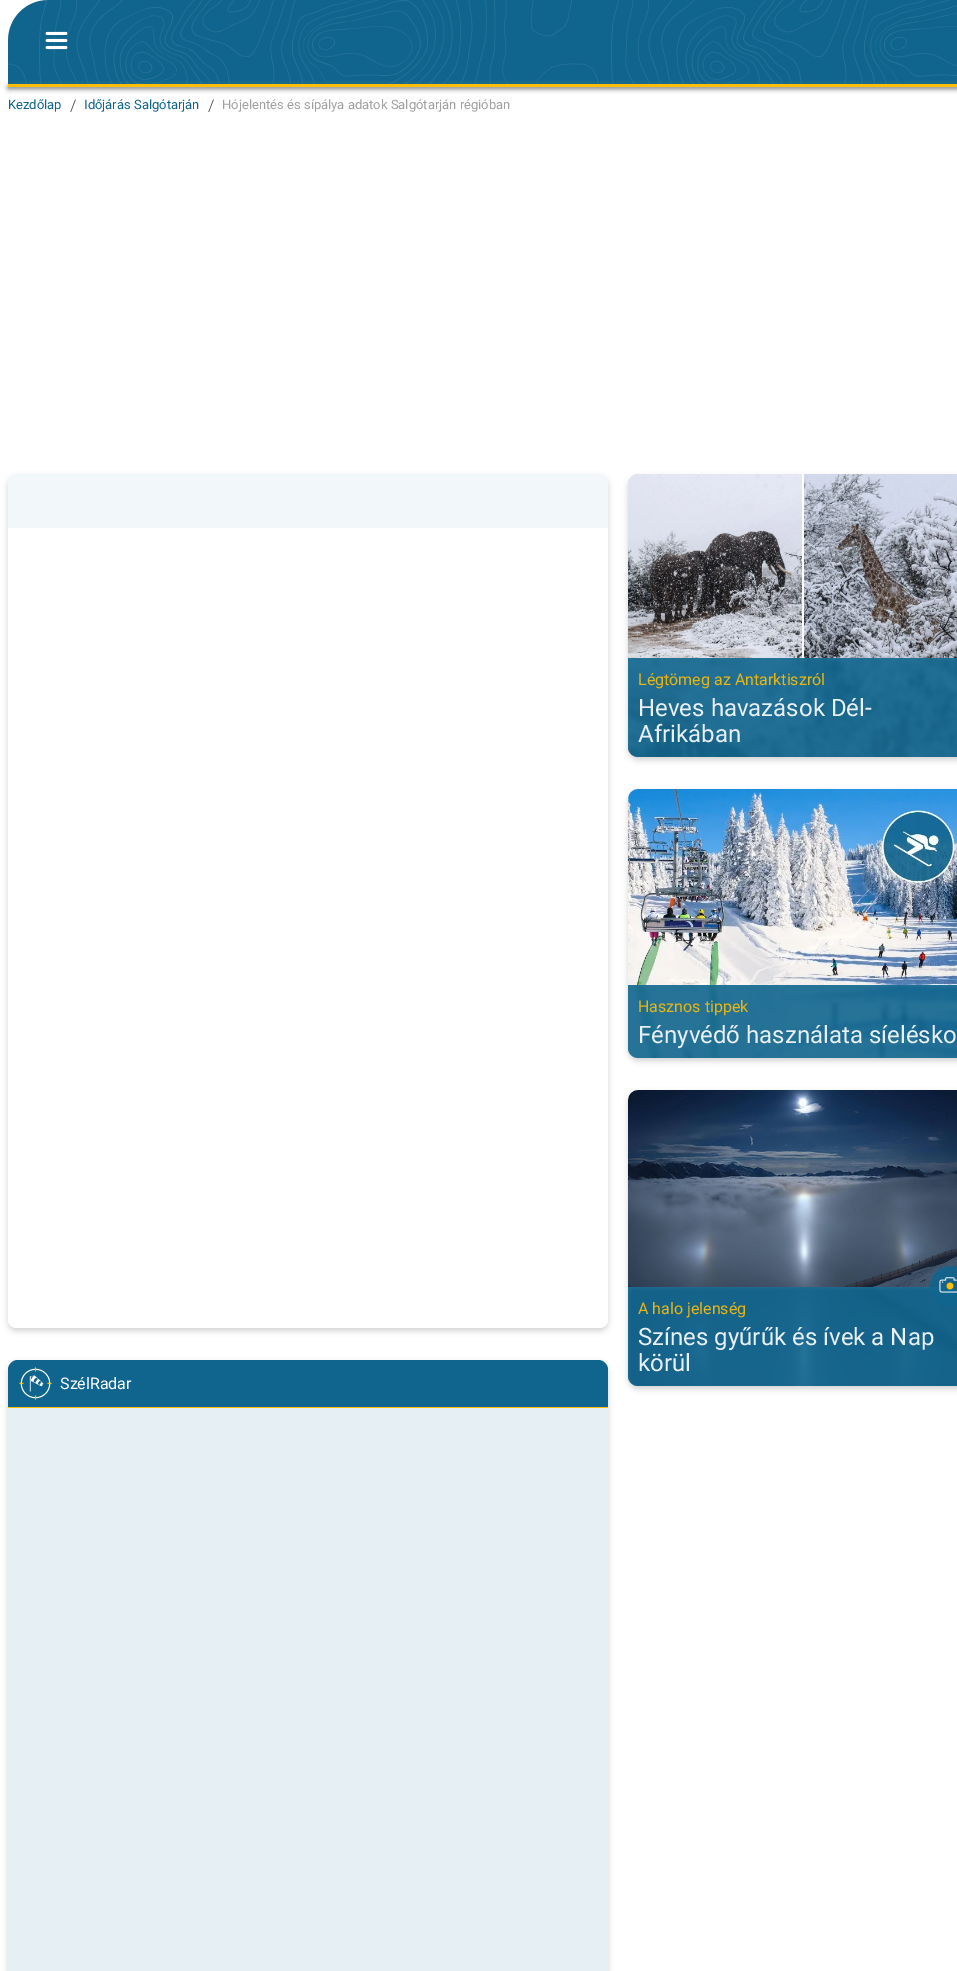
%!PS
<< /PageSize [957 1971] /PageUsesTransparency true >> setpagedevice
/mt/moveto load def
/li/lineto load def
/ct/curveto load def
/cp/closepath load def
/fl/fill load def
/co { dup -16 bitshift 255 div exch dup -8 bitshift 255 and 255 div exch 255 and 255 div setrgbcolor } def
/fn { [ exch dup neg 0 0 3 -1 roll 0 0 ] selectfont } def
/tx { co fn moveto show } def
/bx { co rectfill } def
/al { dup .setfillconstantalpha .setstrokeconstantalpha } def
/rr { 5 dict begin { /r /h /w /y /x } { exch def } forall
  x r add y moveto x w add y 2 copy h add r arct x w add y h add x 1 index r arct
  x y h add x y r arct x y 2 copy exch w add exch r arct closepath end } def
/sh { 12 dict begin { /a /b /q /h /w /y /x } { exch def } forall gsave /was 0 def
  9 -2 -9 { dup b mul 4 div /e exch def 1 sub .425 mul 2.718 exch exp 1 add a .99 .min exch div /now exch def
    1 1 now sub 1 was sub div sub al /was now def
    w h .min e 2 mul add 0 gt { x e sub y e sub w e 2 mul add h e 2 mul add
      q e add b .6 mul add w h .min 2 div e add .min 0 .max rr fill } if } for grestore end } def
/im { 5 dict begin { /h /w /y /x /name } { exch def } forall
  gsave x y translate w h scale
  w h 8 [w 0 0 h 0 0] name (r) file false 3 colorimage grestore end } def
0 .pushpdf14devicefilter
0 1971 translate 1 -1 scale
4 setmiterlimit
0 0 957 1971 16#FFFFFF bx
16#10658E co
48 0 mt 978 0 li 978 85 li 8 85 li 8 40 li 8 18 26 0 48 0 ct cp fl
(media/1.raw) 8 0 949 84 im
(media/2.raw) 45 31 23 19 im
16#808080 co
8 86 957 3 0 2.5 1 sh
8 84 949 3 16#FFBE00 bx
16#000000 co
628 477 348 283 10 3 .17 sh
16#FFFFFF co
628 474 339 283 10 rr fl
16#DEDEDE co
638 474 mt 957 474 li 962.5 474 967 478.5 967 484 ct 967 658 li 628 658 li 628 484 li 628 478.5 632.5 474 638 474 ct cp fl
(media/3.raw) 628 474 329 184 im
(media/4.raw) 628 658 329 99 im
0.9 al
16#10658E co
628 658 mt 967 658 li 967 747 li 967 752.5 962.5 757 957 757 ct 638 757 li 632.5 757 628 752.5 628 747 ct cp fl
1 al
16#000000 co
628 792 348 269 10 3 .17 sh
16#FFFFFF co
628 789 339 269 10 rr fl
16#DEDEDE co
638 789 mt 957 789 li 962.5 789 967 793.5 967 799 ct 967 985 li 628 985 li 628 799 li 628 793.5 632.5 789 638 789 ct cp fl
(media/5.raw) 628 789 329 196 im
(media/6.raw) 628 985 329 73 im
0.9 al
16#10658E co
628 985 mt 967 985 li 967 1048 li 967 1053.5 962.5 1058 957 1058 ct 638 1058 li 632.5 1058 628 1053.5 628 1048 ct cp fl
1 al
16#000000 co
628 1093 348 296 10 3 .17 sh
16#FFFFFF co
628 1090 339 296 10 rr fl
16#DEDEDE co
638 1090 mt 957 1090 li 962.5 1090 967 1094.5 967 1100 ct 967 1287 li 628 1287 li 628 1100 li 628 1094.5 632.5 1090 638 1090 ct cp fl
(media/7.raw) 628 1090 329 197 im
(media/9.raw) 628 1287 329 99 im
0.9 al
16#10658E co
628 1287 mt 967 1287 li 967 1376 li 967 1381.5 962.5 1386 957 1386 ct 638 1386 li 632.5 1386 628 1381.5 628 1376 ct cp fl
1 al
(media/8.raw) 930 1266 27 40 im
16#000000 co
8 477 600 854 8 3 .17 sh
16#FFFFFF co
8 474 600 854 8 rr fl
16#F2F7F9 co
16 474 mt 600 474 li 604.5 474 608 477.5 608 482 ct 608 528 li 8 528 li 8 482 li 8 477.5 11.5 474 16 474 ct cp fl
16#000000 co
8 1363 600 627 10 3 .17 sh
16#E6EFF3 co
8 1360 600 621 10 rr fl
16#10658E co
18 1360 mt 598 1360 li 603.5 1360 608 1364.5 608 1370 ct 608 1408 li 8 1408 li 8 1370 li 8 1364.5 12.5 1360 18 1360 ct cp fl
(media/10.raw) 19 1367 33 33 im
8 1407 600 1 16#FFBE00 bx
(Kezdőlap) 8 109 /Roboto-Regular 13 16#10658E tx
(/) 70 111 /Roboto-Light 16 16#3C3C3C tx
(Időjárás Salgótarján) 84 109 /Roboto-Regular 13 16#10658E tx
(/) 208 111 /Roboto-Light 16 16#3C3C3C tx
(Hójelentés és sípálya adatok Salgótarján régióban) 222 109 /Roboto-Regular 13 16#A0A0A0 tx
(Légtömeg az Antarktiszról) 638 685 /Roboto-Regular 16 16#E9B60F tx
(Heves havazások Dél-) 638 716 /Roboto-Regular 24 16#E9F0F4 tx
(Afrikában) 638 742 /Roboto-Regular 24 16#E9F0F4 tx
(Hasznos tippek) 638 1012 /Roboto-Regular 16 16#E9B60F tx
(Fényvédő használata síelésko) 638 1043 /Roboto-Regular 24 16#E9F0F4 tx
(A halo jelenség) 638 1314 /Roboto-Regular 16 16#E9B60F tx
(Színes gyűrűk és ívek a Nap) 638 1345 /Roboto-Regular 24 16#E9F0F4 tx
(körül) 638 1371 /Roboto-Regular 24 16#E9F0F4 tx
(SzélRadar) 60 1389 /Roboto-Regular 16 16#FFFFFF tx
.poppdf14devicefilter showpage
